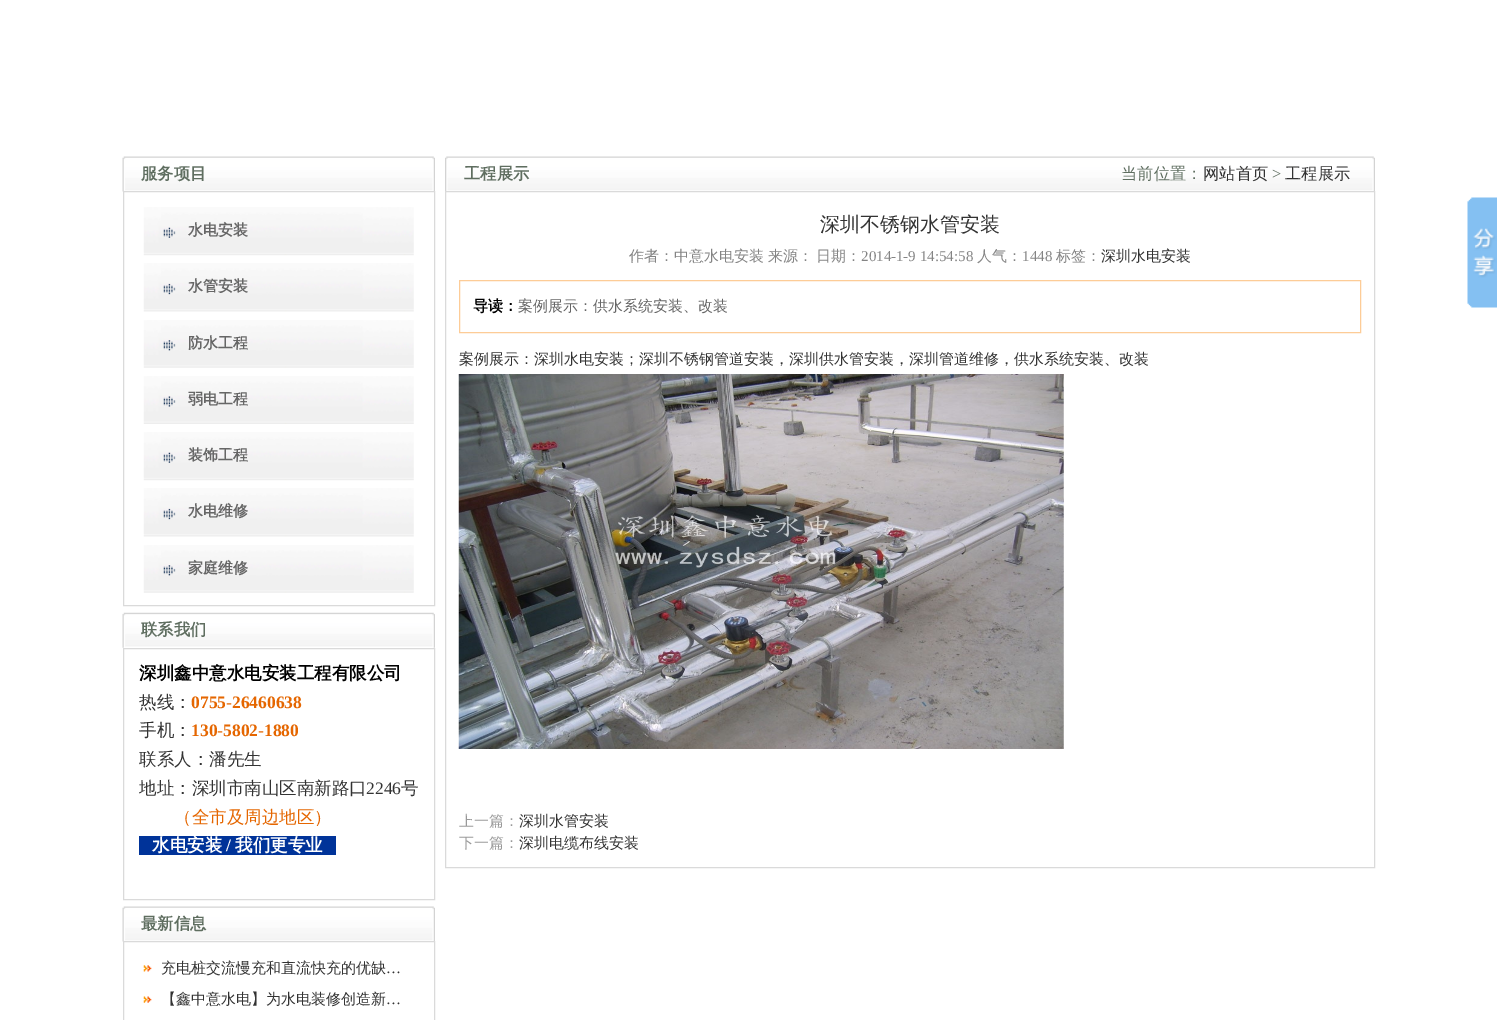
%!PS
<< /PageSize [1497 1020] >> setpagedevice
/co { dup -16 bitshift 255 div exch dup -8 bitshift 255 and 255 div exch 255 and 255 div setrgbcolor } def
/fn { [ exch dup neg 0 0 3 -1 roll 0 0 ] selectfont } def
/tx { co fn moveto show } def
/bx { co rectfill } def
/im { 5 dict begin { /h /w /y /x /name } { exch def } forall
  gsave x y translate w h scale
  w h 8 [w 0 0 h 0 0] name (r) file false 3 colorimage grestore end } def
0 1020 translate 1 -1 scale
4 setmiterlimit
0 0 1497 1020 16#FFFFFF bx
(media/1.raw) 122 156 313 36 im
16#DADADA co
123.5 191.5 311 414 rectstroke
(media/2.raw) 143 207 271 49 im
(media/3.raw) 143 263 271 49 im
(media/4.raw) 143 320 271 48 im
(media/5.raw) 143 376 271 48 im
(media/6.raw) 143 432 271 49 im
(media/3.raw) 143 488 271 49 im
(media/4.raw) 143 545 271 48 im
(media/7.raw) 122 612 313 36 im
123.5 648.5 311 251 rectstroke
139 836 197 19 16#003399 bx
(media/1.raw) 122 906 313 36 im
16#DADADA co
123.5 941.5 311 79 rectstroke
(media/8.raw) 143 965 9 7 im
(media/9.raw) 143 996 9 7 im
(media/10.raw) 445 156 930 35 im
445.5 191.5 929 676 rectstroke
16#FDCC97 co
459.5 280.5 901 52 rectstroke
(media/11.raw) 458 374 606 375 im
(media/12.raw) 1467 197 30 111 im
(服务项目) 141 179 /WenQuanYiZenHei-Bold 16.25 16#5F6E60 tx
(水电安装) 188 235 /WenQuanYiZenHei-Bold 15 16#666666 tx
(水管安装) 188 291 /WenQuanYiZenHei-Bold 15 16#666666 tx
(防水工程) 188 348 /WenQuanYiZenHei-Bold 15 16#666666 tx
(弱电工程) 188 404 /WenQuanYiZenHei-Bold 15 16#666666 tx
(装饰工程) 188 460 /WenQuanYiZenHei-Bold 15 16#666666 tx
(水电维修) 188 516 /WenQuanYiZenHei-Bold 15 16#666666 tx
(家庭维修) 188 573 /WenQuanYiZenHei-Bold 15 16#666666 tx
(联系我们) 141 635 /WenQuanYiZenHei-Bold 16.25 16#5F6E60 tx
(深圳鑫中意水电安装工程有限公司) 139 679 /WenQuanYiZenHei-Bold 17.5 16#000000 tx
(热线：) 139 708 /WenQuanYiZenHei-Medium 17.5 16#333333 tx
(0755-26460638) 191 708 /LiberationSerif-Bold 17.5 16#E56600 tx
(手机：) 139 736 /WenQuanYiZenHei-Medium 17.5 16#333333 tx
(130-5802-1880) 191 736 /LiberationSerif-Bold 17.5 16#E56600 tx
(联系人：潘先生) 139 765 /WenQuanYiZenHei-Medium 17.5 16#333333 tx
(地址：深圳市南山区南新路口) 139 794 /WenQuanYiZenHei-Medium 17.5 16#333333 tx
(2246) 366 794 /LiberationSerif-Regular 17.5 16#333333 tx
(号) 401 794 /WenQuanYiZenHei-Medium 17.5 16#333333 tx
(（全市及周边地区）) 174 823 /WenQuanYiZenHei-Medium 17.5 16#E56600 tx
(水电安装) 152 851 /WenQuanYiZenHei-Bold 17.5 16#FFFFFF tx
(/) 226 851 /LiberationSerif-Bold 17.5 16#FFFFFF tx
(我们更专业) 235 851 /WenQuanYiZenHei-Bold 17.5 16#FFFFFF tx
(最新信息) 141 929 /WenQuanYiZenHei-Bold 16.25 16#5F6E60 tx
(充电桩交流慢充和直流快充的优缺) 161 973 /WenQuanYiZenHei-Medium 15 16#333333 tx
(…) 386 973 /LiberationSerif-Regular 15 16#333333 tx
(【鑫中意水电】为水电装修创造新) 161 1004 /WenQuanYiZenHei-Medium 15 16#333333 tx
(…) 386 1004 /LiberationSerif-Regular 15 16#333333 tx
(工程展示) 464 179 /WenQuanYiZenHei-Bold 16.25 16#5F6E60 tx
(当前位置：) 1121 179 /WenQuanYiZenHei-Medium 16.25 16#5F6E60 tx
(网站首页) 1203 179 /WenQuanYiZenHei-Medium 16.25 16#333333 tx
(>) 1272 179 /LiberationSerif-Regular 16.25 16#5F6E60 tx
(工程展示) 1285 179 /WenQuanYiZenHei-Medium 16.25 16#333333 tx
(深圳不锈钢水管安装) 820 231 /WenQuanYiZenHei-Medium 20 16#333333 tx
(作者：中意水电安装) 629 261 /WenQuanYiZenHei-Medium 15 16#848484 tx
(来源：) 768 261 /WenQuanYiZenHei-Medium 15 16#848484 tx
(日期：) 816 261 /WenQuanYiZenHei-Medium 15 16#848484 tx
(2014-1-9 14:54:58) 861 261 /LiberationSerif-Regular 15 16#848484 tx
(人气：) 977 261 /WenQuanYiZenHei-Medium 15 16#848484 tx
(1448) 1022 261 /LiberationSerif-Regular 15 16#848484 tx
(标签：) 1056 261 /WenQuanYiZenHei-Medium 15 16#848484 tx
(深圳水电安装) 1101 261 /WenQuanYiZenHei-Medium 15 16#333333 tx
(导读：) 473 311 /WenQuanYiZenHei-Bold 15 16#000000 tx
(案例展示：供水系统安装、改装) 518 311 /WenQuanYiZenHei-Medium 15 16#666666 tx
(案例展示：深圳水电安装；深圳不锈钢管道安装，深圳供水管安装，深圳管道维修，供水系统安装、改装) 459 364 /WenQuanYiZenHei-Medium 15 16#333333 tx
(上一篇：) 459 826 /WenQuanYiZenHei-Medium 15 16#999999 tx
(深圳水管安装) 519 826 /WenQuanYiZenHei-Medium 15 16#333333 tx
(下一篇：) 459 848 /WenQuanYiZenHei-Medium 15 16#999999 tx
(深圳电缆布线安装) 519 848 /WenQuanYiZenHei-Medium 15 16#333333 tx
showpage
